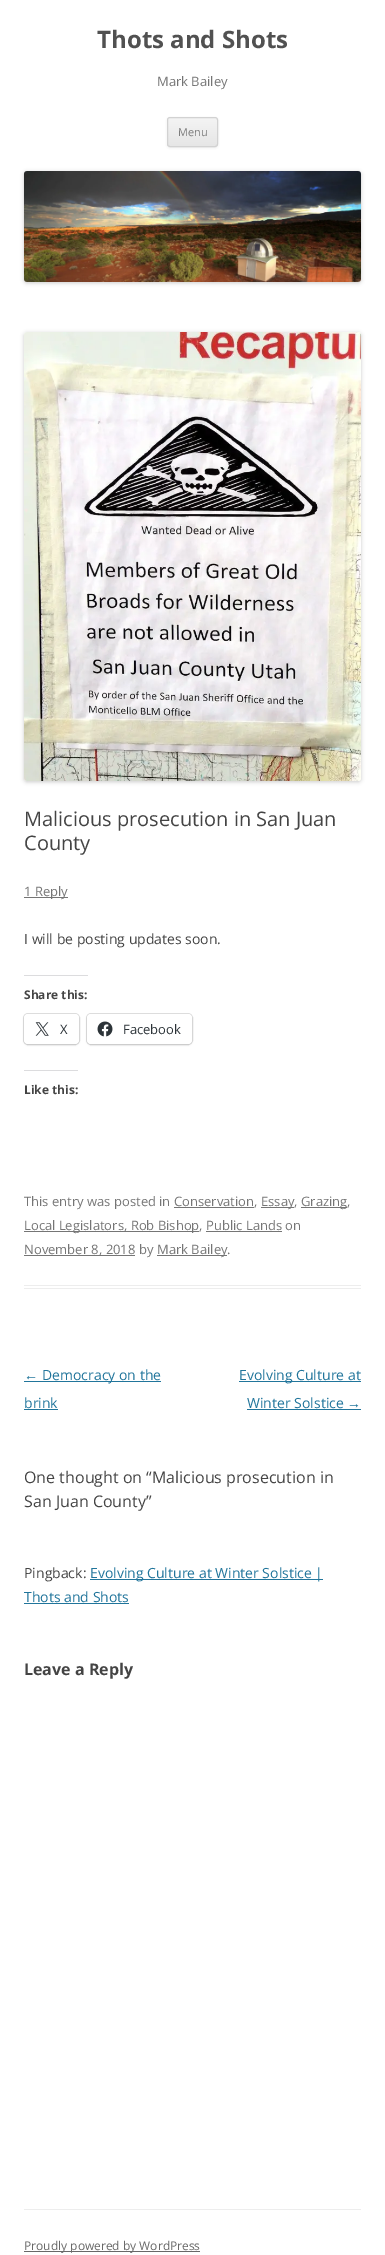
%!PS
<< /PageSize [385 2255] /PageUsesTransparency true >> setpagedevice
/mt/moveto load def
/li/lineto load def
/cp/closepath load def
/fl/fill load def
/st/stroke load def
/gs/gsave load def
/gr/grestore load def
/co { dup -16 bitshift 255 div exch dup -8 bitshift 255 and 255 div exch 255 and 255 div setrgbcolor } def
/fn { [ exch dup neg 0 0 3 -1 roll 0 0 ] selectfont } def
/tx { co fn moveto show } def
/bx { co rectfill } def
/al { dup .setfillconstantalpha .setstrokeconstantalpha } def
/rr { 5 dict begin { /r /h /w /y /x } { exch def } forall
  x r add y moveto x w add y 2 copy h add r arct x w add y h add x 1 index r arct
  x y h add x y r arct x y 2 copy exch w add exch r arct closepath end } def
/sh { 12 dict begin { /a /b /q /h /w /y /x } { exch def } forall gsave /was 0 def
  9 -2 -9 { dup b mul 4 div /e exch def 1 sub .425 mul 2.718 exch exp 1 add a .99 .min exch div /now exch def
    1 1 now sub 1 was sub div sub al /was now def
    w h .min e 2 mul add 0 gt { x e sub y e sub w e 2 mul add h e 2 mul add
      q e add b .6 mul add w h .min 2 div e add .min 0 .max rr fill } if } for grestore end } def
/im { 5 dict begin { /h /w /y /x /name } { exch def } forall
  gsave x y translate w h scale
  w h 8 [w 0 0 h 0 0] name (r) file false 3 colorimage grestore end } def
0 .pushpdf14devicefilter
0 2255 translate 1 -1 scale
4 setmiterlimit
0 0 385 2255 16#FFFFFF bx
16#404040 co
167 118 51 30 3 1 .1 sh
gs
167 117 51 30 3 rr clip newpath
gs 167 118 mt 218 118 li 218 146 li 167 146 li cp clip newpath
<< /ShadingType 2 /ColorSpace /DeviceRGB /Coords [193 118 193 146] /Extend [true true] /Function << /FunctionType 2 /Domain [0 1] /C0 [.957 .957 .957] /C1 [.902 .902 .902] /N 1 >> >> shfill gr
gr
16#D2D2D2 co
167.5 117.5 50 29 2.5 rr st
16#000000 co
24 172 337 111 3 2 .2 sh
(media/1.raw) 24 171 337 111 im
24 1285 337 1 16#EDEDED bx
24 1288 337 1 16#EDEDED bx
16#000000 co
24 333 337 449 3 2 .2 sh
(media/2.raw) 24 332 337 449 im
24 897 44 1 16#757575 bx
24 975 64 1 16#DCDCDE bx
16#E0E0E0 co
23.5 1013.5 56 31 4.5 rr st
16#000000 co
24 1015 55 30 4 1 .12 sh
16#FFFFFF co
24 1014 55 30 4 rr fl
(media/3.raw) 35 1022 14 14 im
16#E0E0E0 co
86.5 1013.5 106 31 4.5 rr st
16#000000 co
87 1015 105 30 4 1 .12 sh
16#FFFFFF co
87 1014 105 30 4 rr fl
(media/4.raw) 97 1021 16 16 im
24 1070 54 1 16#DCDCDE bx
261 1207 33 1 16#757575 bx
301 1207 46 1 16#757575 bx
174 1207 80 1 16#757575 bx
24 1231 175 1 16#757575 bx
206 1231 76 1 16#757575 bx
24 1255 111 1 16#757575 bx
157 1255 70 1 16#757575 bx
24 1381 137 1 16#21759B bx
24 1409 34 1 16#21759B bx
239 1381 122 1 16#21759B bx
247 1409 114 1 16#21759B bx
90 1579 233 1 16#21759B bx
24 1603 105 1 16#21759B bx
24 2209 337 1 16#EDEDED bx
24 2251 176 1 16#686868 bx
(Thots and Shots) 97 48 /OpenSans-Bold 24 16#515151 tx
(Mark Bailey) 157 86 /OpenSans-Regular 13 16#757575 tx
(Menu) 178 136 /OpenSans-Regular 11 16#7C7C7C tx
(Malicious prosecution in San Juan) 24 826 /OpenSans-Regular 20 16#444444 tx
(County) 24 850 /OpenSans-Regular 20 16#444444 tx
(1 Reply) 24 896 /OpenSans-Regular 13 16#757575 tx
(I will be posting updates soon.) 24 944 /OpenSans-Regular 14 16#444444 tx
(Share this:) 24 999 /OpenSans-Bold 12 16#444444 tx
(X) 60 1034 /OpenSans-Regular 13 16#2C3338 tx
(Facebook) 123 1034 /OpenSans-Regular 13 16#2C3338 tx
(Like this:) 24 1094 /OpenSans-Bold 12 16#444444 tx
(This entry was posted in Conservation,) 24 1206 /OpenSans-Regular 13 16#757575 tx
(Essay,) 261 1206 /OpenSans-Regular 13 16#757575 tx
(Grazing,) 301 1206 /OpenSans-Regular 13 16#757575 tx
(Local Legislators, Rob Bishop, Public Lands on) 24 1230 /OpenSans-Regular 13 16#757575 tx
(November 8, 2018 by) 24 1254 /OpenSans-Regular 13 16#757575 tx
(Mark Bailey.) 157 1254 /OpenSans-Regular 13 16#757575 tx
(←) 24 1380 /LiberationSans-Regular 14 16#21759B tx
(Democracy on the) 42 1380 /OpenSans-Regular 14 16#21759B tx
(brink) 24 1408 /OpenSans-Regular 14 16#21759B tx
(Evolving Culture at) 239 1380 /OpenSans-Regular 14 16#21759B tx
(Winter Solstice) 247 1408 /OpenSans-Regular 14 16#21759B tx
(→) 347 1408 /LiberationSans-Regular 14 16#21759B tx
(One thought on “Malicious prosecution in) 24 1483 /OpenSans-Regular 16 16#444444 tx
(San Juan County”) 24 1507 /OpenSans-Regular 16 16#444444 tx
(Pingback:) 24 1578 /OpenSans-Regular 14 16#444444 tx
(Evolving Culture at Winter Solstice |) 90 1578 /OpenSans-Regular 14 16#21759B tx
(Thots and Shots) 24 1602 /OpenSans-Regular 14 16#21759B tx
(Leave a Reply) 24 1675 /OpenSans-Bold 16 16#444444 tx
(Proudly powered by WordPress) 24 2250 /OpenSans-Regular 12 16#686868 tx
.poppdf14devicefilter showpage
